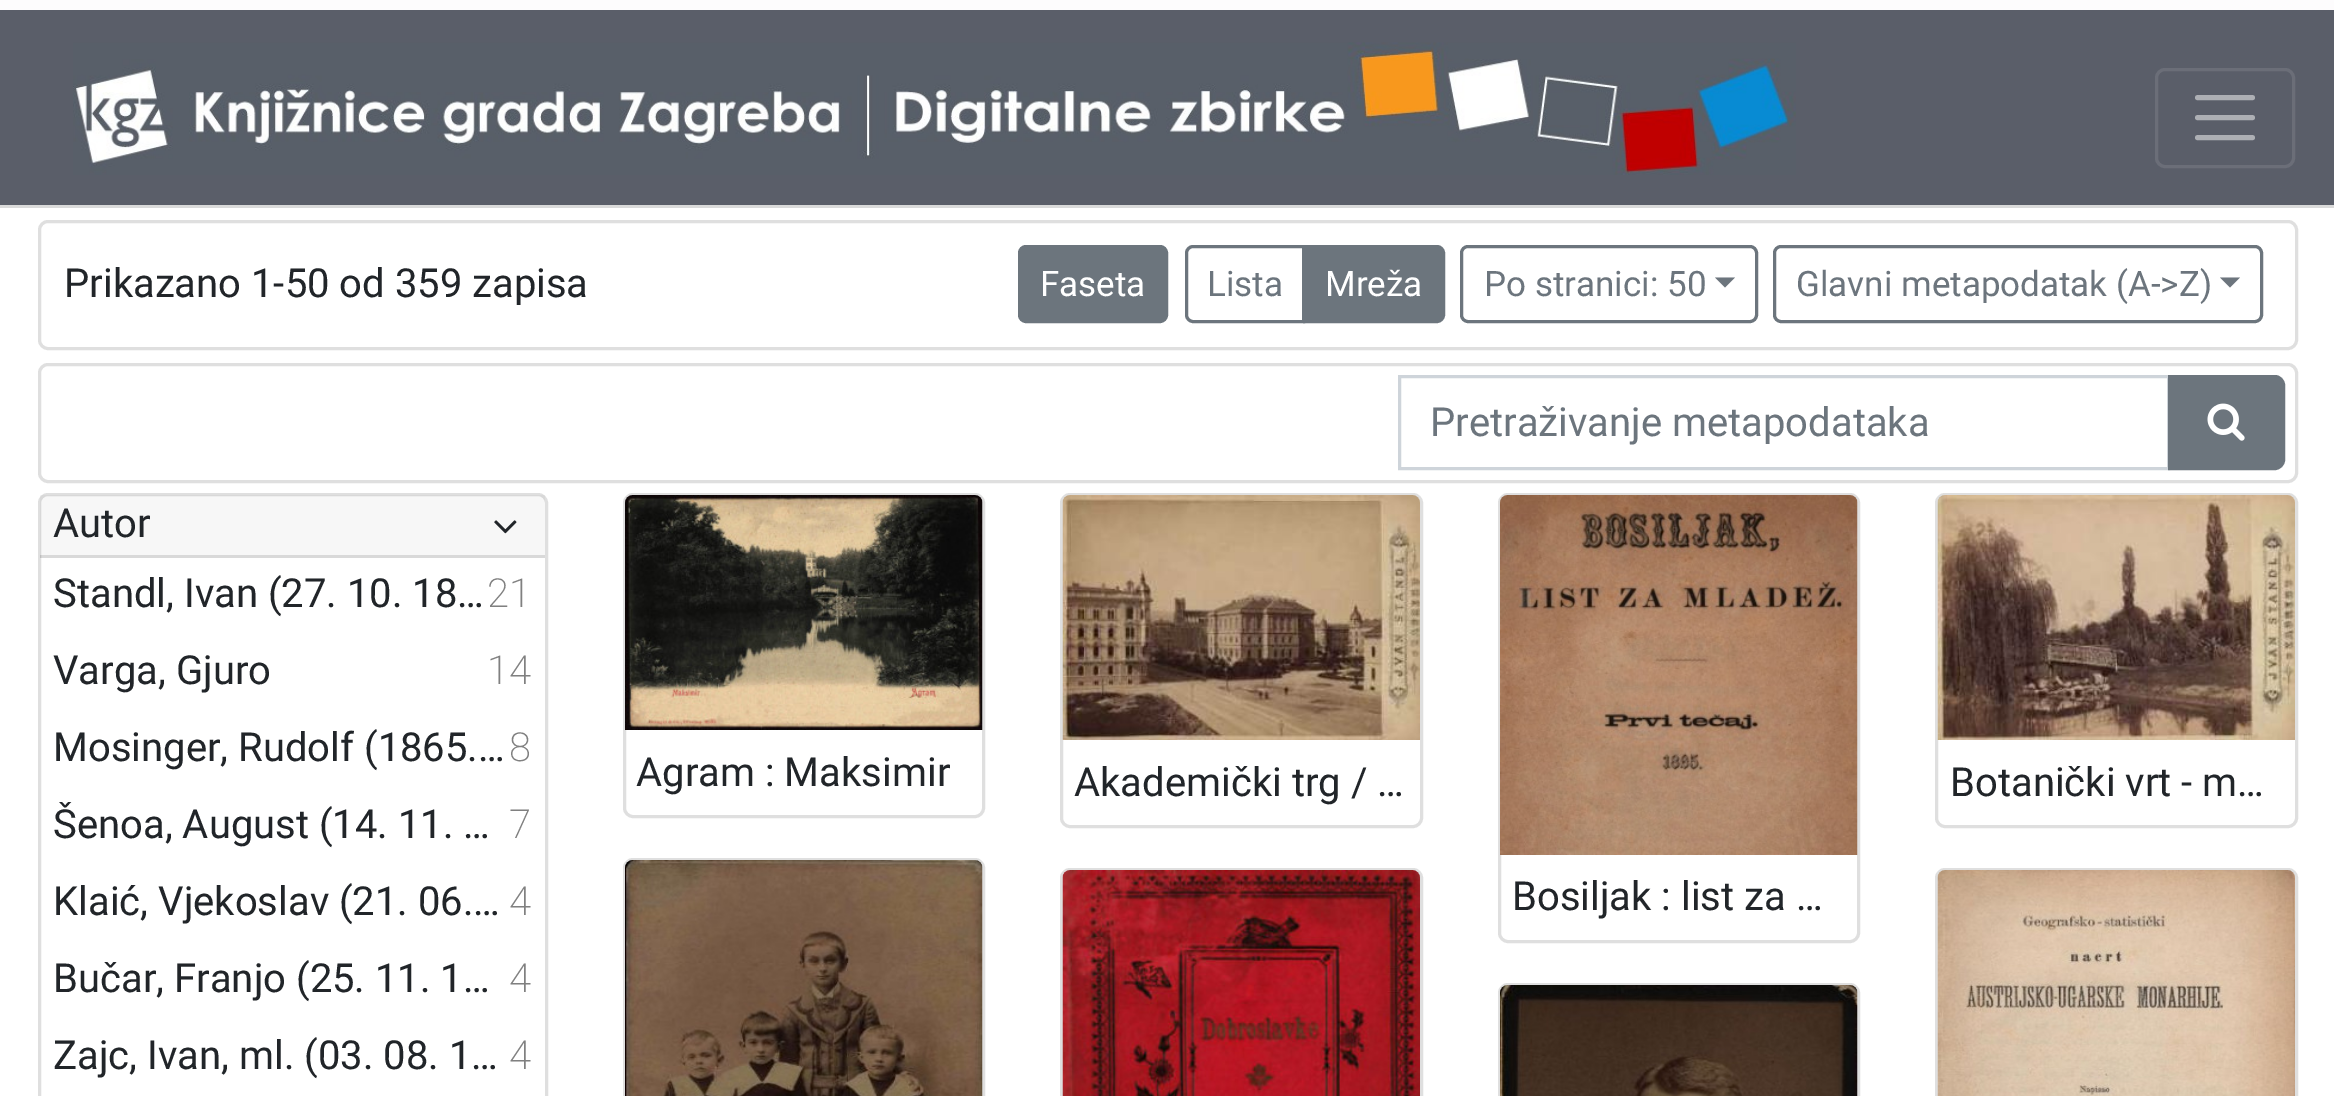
%!PS
<< /PageSize [2334 1096] /PageUsesTransparency true >> setpagedevice
/mt/moveto load def
/li/lineto load def
/ct/curveto load def
/cp/closepath load def
/fl/fill load def
/st/stroke load def
/gs/gsave load def
/gr/grestore load def
/lw/setlinewidth load def
/co { dup -16 bitshift 255 div exch dup -8 bitshift 255 and 255 div exch 255 and 255 div setrgbcolor } def
/fn { [ exch dup neg 0 0 3 -1 roll 0 0 ] selectfont } def
/tx { co fn moveto show } def
/bx { co rectfill } def
/al { dup .setfillconstantalpha .setstrokeconstantalpha } def
/rr { 5 dict begin { /r /h /w /y /x } { exch def } forall
  x r add y moveto x w add y 2 copy h add r arct x w add y h add x 1 index r arct
  x y h add x y r arct x y 2 copy exch w add exch r arct closepath end } def
/im { 5 dict begin { /h /w /y /x /name } { exch def } forall
  gsave x y translate w h scale
  w h 8 [w 0 0 h 0 0] name (r) file false 3 colorimage grestore end } def
0 .pushpdf14devicefilter
0 1096 translate 1 -1 scale
4 setmiterlimit
0 0 2334 1096 16#FFFFFF bx
0 10 2334 195 16#5A5E69 bx
0 0 2334 10 16#FDFCFD bx
0 205 2334 3 16#DADADA bx
(media/1.raw) 73 42 1723 133 im
16#6B6E78 co
3 lw
2156.5 69.5 137 97 8.5 rr st
16#ADAFB4 co
5 lw
1 setlinecap
2197.5 97.5 mt 2252.5 97.5 li 2197.5 117.5 mt 2252.5 117.5 li 2197.5 137.5 mt 2252.5 137.5 li st
16#DFDFDF co
3 lw
0 setlinecap
39.5 221.5 2257 127 8.5 rr st
16#6C757D co
1019.5 246.5 147 75 6.5 rr gs fl gr
st
1193 246.5 mt 1303.5 246.5 li 1303.5 321.5 li 1193 321.5 li 1189.5 321.5 1186.5 318.5 1186.5 315 ct 1186.5 253 li 1186.5 249.5 1189.5 246.5 1193 246.5 ct cp st
1304.5 246.5 mt 1437 246.5 li 1440.5 246.5 1443.5 249.5 1443.5 253 ct 1443.5 315 li 1443.5 318.5 1440.5 321.5 1437 321.5 ct 1304.5 321.5 li cp gs fl gr
st
1461.5 246.5 295 75 6.5 rr st
1715 277.5 mt 1735 277.5 li 1725 287.5 li cp fl
1774.5 246.5 487 75 6.5 rr st
2220 277.5 mt 2240 277.5 li 2230 287.5 li cp fl
16#DFDFDF co
39.5 364.5 2257 117 8.5 rr st
16#CED4DA co
1399.5 376.5 769 92 rectstroke
16#6C757D co
2169.5 376.5 mt 2275 376.5 li 2279.5 376.5 2283.5 380.5 2283.5 385 ct 2283.5 460 li 2283.5 464.5 2279.5 468.5 2275 468.5 ct 2169.5 468.5 li cp gs fl gr
st
(media/2.raw) 2207 403 38 38 im
16#DFDFDF co
39.5 494.5 507 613 8.5 rr st
0.03 al
40 495 505 63 16#000000 bx
0.12 al
40 555 505 3 16#000000 bx
1 al
(media/3.raw) 494 520 23 14 im
16#DFDFDF co
624.5 494.5 359 322 8.5 rr st
(media/4.raw) 625 495 358 235 im
1061.5 494.5 360 332 8.5 rr st
(media/5.raw) 1062 495 358 245 im
1936.5 494.5 360 332 8.5 rr st
(media/6.raw) 1937 495 358 245 im
624.5 859.5 359 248 8.5 rr st
(media/7.raw) 625 860 358 236 im
1061.5 869.5 360 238 8.5 rr st
(media/8.raw) 1062 870 358 226 im
1499.5 494.5 359 447 8.5 rr st
(media/9.raw) 1500 495 358 360 im
1936.5 869.5 360 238 8.5 rr st
(media/10.raw) 1937 870 358 226 im
1499.5 984.5 359 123 8.5 rr st
(media/11.raw) 1500 985 358 111 im
(Prikazano 1-50 od 359 zapisa) 64 297 /Roboto-Regular 40 16#212529 tx
(Faseta) 1040 296 /Roboto-Regular 35 16#FFFFFF tx
(Lista) 1207 296 /Roboto-Regular 35 16#6C757D tx
(Mreža) 1325 296 /Roboto-Regular 35 16#FFFFFF tx
(Po stranici: 50) 1484 296 /Roboto-Regular 35 16#6C757D tx
(Glavni metapodatak \(A->Z\)) 1796 296 /Roboto-Regular 35 16#6C757D tx
(Pretraživanje metapodataka) 1430 436 /Roboto-Regular 40 16#6C757D tx
(Autor) 53 537 /Roboto-Regular 40 16#212529 tx
(Standl, Ivan \(27. 10. 18…) 53 607 /Roboto-Regular 40 16#212529 tx
(21) 487 607 /Roboto-ExtraLight 40 16#808080 tx
(Varga, Gjuro) 53 684 /Roboto-Regular 40 16#212529 tx
(14) 487 684 /Roboto-ExtraLight 40 16#808080 tx
(Mosinger, Rudolf \(1865.…) 53 761 /Roboto-Regular 40 16#212529 tx
(8) 509 761 /Roboto-ExtraLight 40 16#808080 tx
(Šenoa, August \(14. 11. …) 53 838 /Roboto-Regular 40 16#212529 tx
(7) 509 838 /Roboto-ExtraLight 40 16#808080 tx
(Klaić, Vjekoslav \(21. 06.…) 53 915 /Roboto-Regular 40 16#212529 tx
(4) 509 915 /Roboto-ExtraLight 40 16#808080 tx
(Bučar, Franjo \(25. 11. 1…) 53 992 /Roboto-Regular 40 16#212529 tx
(4) 509 992 /Roboto-ExtraLight 40 16#808080 tx
(Zajc, Ivan, ml. \(03. 08. 1…) 53 1069 /Roboto-Regular 40 16#212529 tx
(4) 509 1069 /Roboto-ExtraLight 40 16#808080 tx
(Agram : Maksimir) 636 786 /Roboto-Regular 40 16#212529 tx
(Akademički trg / …) 1074 796 /Roboto-Regular 40 16#212529 tx
(Botanički vrt - m…) 1950 796 /Roboto-Regular 40 16#212529 tx
(Bosiljak : list za …) 1512 910 /Roboto-Regular 40 16#212529 tx
.poppdf14devicefilter showpage
